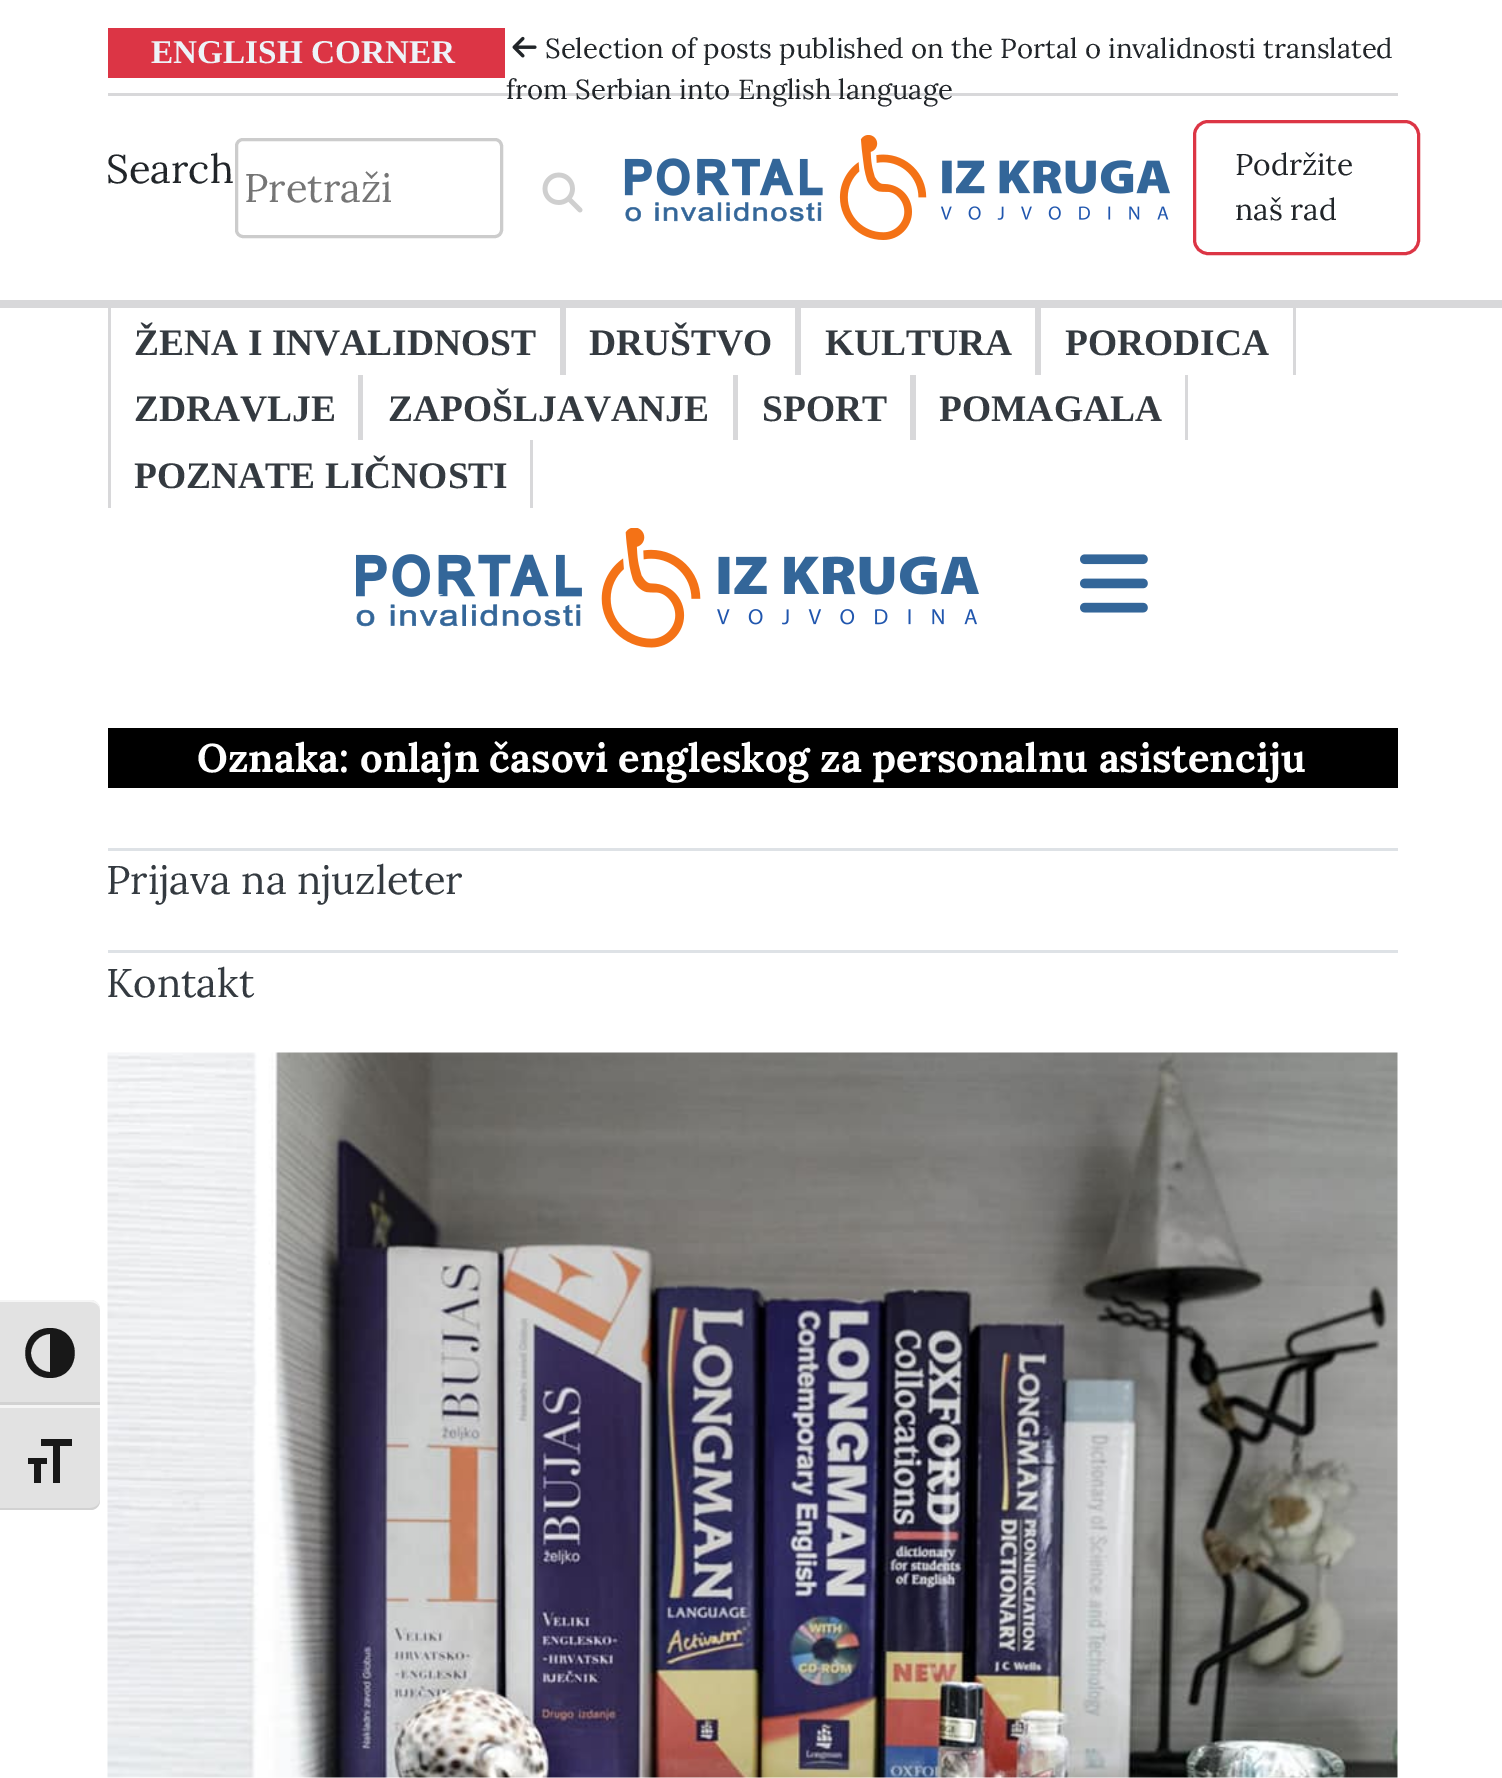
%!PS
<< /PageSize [1502 1778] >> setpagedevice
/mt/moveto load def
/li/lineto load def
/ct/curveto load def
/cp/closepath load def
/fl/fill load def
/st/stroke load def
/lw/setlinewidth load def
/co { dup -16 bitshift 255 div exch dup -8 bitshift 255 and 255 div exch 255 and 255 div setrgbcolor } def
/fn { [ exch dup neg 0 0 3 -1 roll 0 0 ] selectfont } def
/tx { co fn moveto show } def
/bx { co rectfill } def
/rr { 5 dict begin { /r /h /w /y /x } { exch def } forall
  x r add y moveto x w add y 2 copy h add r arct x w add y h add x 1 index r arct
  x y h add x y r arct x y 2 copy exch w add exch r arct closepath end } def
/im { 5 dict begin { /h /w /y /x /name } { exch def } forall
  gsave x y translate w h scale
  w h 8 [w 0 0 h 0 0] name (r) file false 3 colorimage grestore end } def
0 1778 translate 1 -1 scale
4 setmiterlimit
0 0 1502 1778 16#FFFFFF bx
108 93 1290 3 16#D8D8DA bx
108 28 397 50 16#DC3545 bx
(media/1.raw) 512 36 25 22 im
16#CCCCCC co
3 lw
236.5 139.5 265 97 6.5 rr st
(media/2.raw) 542 172 41 41 im
(media/3.raw) 624 135 546 105 im
16#DC3545 co
1194.5 121.5 224 132 13.5 rr st
0 300 1502 8 16#D8D8DA bx
560 308 6 67 16#D8D8DA bx
108 308 3 200 16#D8D8DA bx
795 308 6 67 16#D8D8DA bx
1035 308 6 67 16#D8D8DA bx
1293 308 3 67 16#D8D8DA bx
358 375 5 65 16#D8D8DA bx
733 375 5 65 16#D8D8DA bx
910 375 6 65 16#D8D8DA bx
1185 375 3 65 16#D8D8DA bx
530 440 3 68 16#D8D8DA bx
(media/4.raw) 356 528 623 120 im
(media/5.raw) 1080 554 68 59 im
108 728 1290 60 16#000000 bx
108 848 1290 3 16#DEE2E6 bx
108 950 1290 3 16#DEE2E6 bx
(media/6.raw) 107 1052 1291 726 im
16#E2E2E2 co
0 1300 mt 90 1300 li 95.5 1300 100 1304.5 100 1310 ct 100 1405 li 0 1405 li cp fl
16#F5F5F5 co
0 1300 mt 0 1302 li 90 1302 li 96 1302 100 1306 100 1310 ct 100 1304 96 1300 90 1300 ct cp fl
0 1402 100 3 16#D2D2D2 bx
16#181818 co
50 1328 mt 17 1328 17 1378 50 1378 ct 83 1378 83 1328 50 1328 ct cp 31 1353 mt 31 1343 40 1334 50 1334 ct 50 1372 li 40 1372 31 1363 31 1353 ct cp fl
16#E2E2E2 co
0 1405 mt 100 1405 li 100 1500 li 100 1505.5 95.5 1510 90 1510 ct 0 1510 li cp fl
0 1405 100 3 16#F5F5F5 bx
16#D2D2D2 co
0 1508 mt 0 1510 li 90 1510 li 96 1510 100 1506 100 1500 ct 100 1504 96 1508 90 1508 ct cp fl
16#181818 co
28 1458 mt 47 1458 li 47 1464 li 41 1464 li 41 1483 li 34 1483 li 34 1464 li 28 1464 li cp 72 1446 mt 60 1446 li 60 1483 li 53 1483 li 53 1446 li 41 1446 li 41 1439 li 72 1439 li cp fl
(ENGLISH CORNER) 151 63 /LiberationSerif-Bold 33.25 16#EDF3F8 tx
(Selection of posts published on the Portal o invalidnosti translated) 545 58 /Lora-Regular 27.5 16#212529 tx
(from Serbian into English language) 506 99 /Lora-Regular 27.5 16#212529 tx
(Search) 106 183 /Lora-Regular 40 16#212529 tx
(Pretraži) 244 202 /Lora-Regular 40 16#757575 tx
(Podržite) 1235 175 /Lora-Regular 30 16#212529 tx
(naš rad) 1235 220 /Lora-Regular 30 16#212529 tx
(ŽENA I INVALIDNOST) 134 355 /LiberationSerif-Bold 37.5 16#343A40 tx
(DRUŠTVO) 589 355 /LiberationSerif-Bold 37.5 16#343A40 tx
(KULTURA) 825 355 /LiberationSerif-Bold 37.5 16#343A40 tx
(PORODICA) 1065 355 /LiberationSerif-Bold 37.5 16#343A40 tx
(ZDRAVLJE) 134 421 /LiberationSerif-Bold 37.5 16#343A40 tx
(ZAPOŠLJAVANJE) 388 421 /LiberationSerif-Bold 37.5 16#343A40 tx
(SPORT) 762 421 /LiberationSerif-Bold 37.5 16#343A40 tx
(POMAGALA) 939 421 /LiberationSerif-Bold 37.5 16#343A40 tx
(POZNATE LIČNOSTI) 134 488 /LiberationSerif-Bold 37.5 16#343A40 tx
(Oznaka: onlajn časovi engleskog za personalnu asistenciju) 197 772 /Lora-Bold 40 16#FFFFFF tx
(Prijava na njuzleter) 106 894 /Lora-Regular 40 16#343A40 tx
(Kontakt) 106 997 /Lora-Regular 40 16#343A40 tx
showpage
